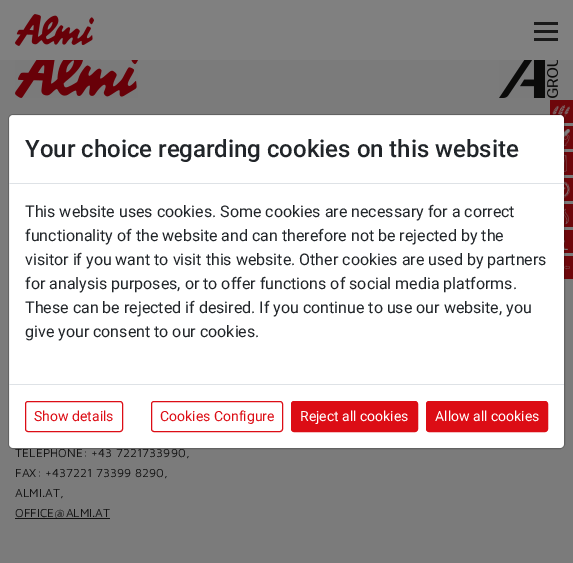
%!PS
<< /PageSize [573 563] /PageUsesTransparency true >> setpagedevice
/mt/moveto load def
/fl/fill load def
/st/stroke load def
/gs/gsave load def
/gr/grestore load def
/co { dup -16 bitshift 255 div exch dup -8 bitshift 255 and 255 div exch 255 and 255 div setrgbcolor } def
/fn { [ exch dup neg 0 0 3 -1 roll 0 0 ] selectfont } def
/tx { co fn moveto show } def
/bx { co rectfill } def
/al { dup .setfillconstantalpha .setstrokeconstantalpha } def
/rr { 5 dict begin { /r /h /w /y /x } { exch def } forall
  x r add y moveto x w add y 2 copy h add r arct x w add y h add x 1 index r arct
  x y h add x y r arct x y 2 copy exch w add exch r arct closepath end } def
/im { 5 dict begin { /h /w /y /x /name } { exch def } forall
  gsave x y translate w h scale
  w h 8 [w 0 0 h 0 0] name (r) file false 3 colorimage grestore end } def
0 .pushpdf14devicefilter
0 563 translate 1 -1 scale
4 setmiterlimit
0 0 573 563 16#7B7B7B bx
0 0 573 60 16#808080 bx
(media/1.raw) 15 14 79 32 im
(media/2.raw) 534 22 24 19 im
550 100 23 23 16#6E070B bx
(media/3.raw) 552 105 18 12 im
16#FFFFFF co
9 115 555 333 4 rr fl
564 126 9 23 16#6E070B bx
(media/4.raw) 564 129 6 17 im
564 152 9 23 16#6E070B bx
(media/5.raw) 564 155 3 17 im
564 178 9 23 16#6E070B bx
(media/6.raw) 564 181 6 17 im
564 204 9 23 16#6E070B bx
(media/7.raw) 564 208 5 16 im
564 230 9 23 16#6E070B bx
(media/8.raw) 564 239 4 11 im
564 256 9 23 16#6E070B bx
(media/9.raw) 564 265 6 5 im
(media/10.raw) 15 60 123 38 im
(media/11.raw) 499 60 59 38 im
15 518 95 1 16#131313 bx
/MavenPro-Regular 12 fn
15 457 mt .1 0 (TELEPHONE: +43 7221733990,) ashow
0.2 al
16#000000 co
8.5 114.5 556 334 4.5 rr st
1 al
(give your consent to our cookies.) 25 337 /Roboto-Regular 16 16#212529 tx
(These can be rejected if desired. If you continue to use our website, you) 25 313 /Roboto-Regular 16 16#212529 tx
(for analysis purposes, or to offer functions of social media platforms.) 25 289 /Roboto-Regular 16 16#212529 tx
(visitor if you want to visit this website. Other cookies are used by partners) 25 265 /Roboto-Regular 16 16#212529 tx
(functionality of the website and can therefore not be rejected by the) 25 241 /Roboto-Regular 16 16#212529 tx
(This website uses cookies. Some cookies are necessary for a correct) 25 217 /Roboto-Regular 16 16#212529 tx
16#DC0D15 co
426.5 401.5 121 30 2.5 rr gs fl gr
st
(Allow all cookies) 435 421 /Roboto-Regular 14 16#FFFFFF tx
16#DC0D15 co
291.5 401.5 126 30 2.5 rr gs fl gr
st
(Reject all cookies) 300 421 /Roboto-Regular 14 16#FFFFFF tx
16#DC0D15 co
151.5 401.5 131 30 2.5 rr st
(Cookies Configure) 160 421 /Roboto-Regular 14 16#DC0D15 tx
25.5 401.5 97 30 2.5 rr st
(Show details) 34 421 /Roboto-Regular 14 16#DC0D15 tx
9 384 555 1 16#DEE2E6 bx
(Your choice regarding cookies on this website) 25 157 /Roboto-Medium 24 16#212529 tx
9 183 555 1 16#DEE2E6 bx
/MavenPro-Regular 12 fn
16#131313 co
15 477 mt .1 0 (FAX: +437221 73399 8290,) ashow
15 497 mt .1 0 (ALMI.AT,) ashow
15 517 mt .1 0 (OFFICE@ALMI.AT) ashow
.poppdf14devicefilter showpage
